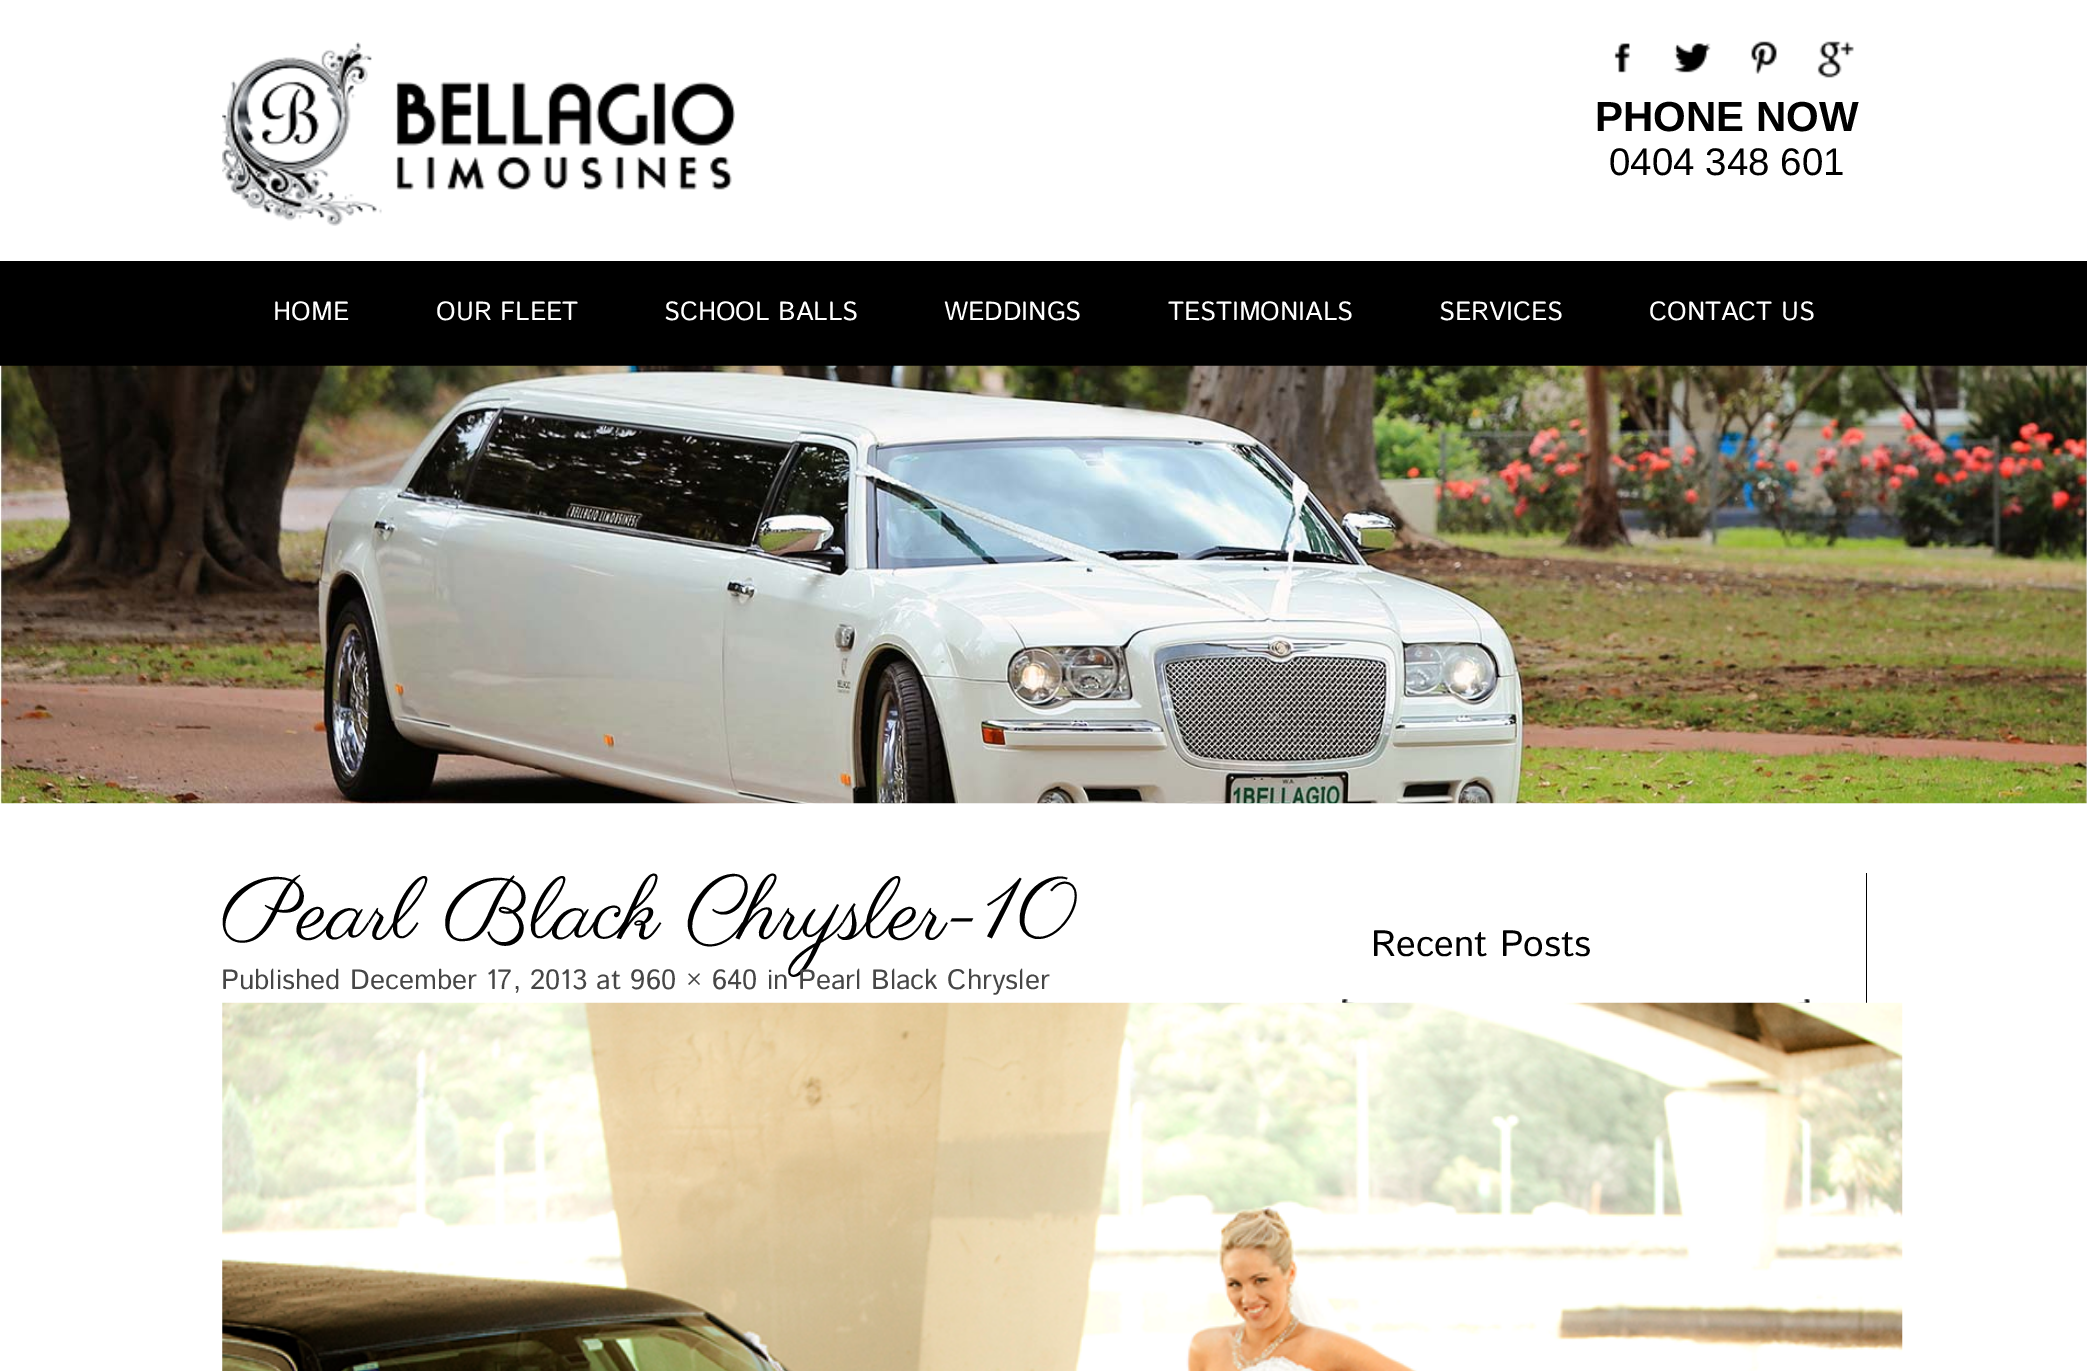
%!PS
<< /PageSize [2087 1371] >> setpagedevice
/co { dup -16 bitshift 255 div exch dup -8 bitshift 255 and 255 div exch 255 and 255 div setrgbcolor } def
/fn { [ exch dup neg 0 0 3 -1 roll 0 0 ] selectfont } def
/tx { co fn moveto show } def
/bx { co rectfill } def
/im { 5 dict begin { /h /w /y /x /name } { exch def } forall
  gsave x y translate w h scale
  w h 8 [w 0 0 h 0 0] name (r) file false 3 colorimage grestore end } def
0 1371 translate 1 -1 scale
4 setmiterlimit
0 0 2087 1371 16#FFFFFF bx
(media/1.raw) 222 42 513 184 im
(media/2.raw) 1614 43 16 30 im
(media/3.raw) 1674 43 37 30 im
(media/4.raw) 1751 41 26 33 im
(media/5.raw) 1817 41 37 37 im
0 261 2087 105 16#000000 bx
(media/6.raw) 0 365 2087 439 im
(media/8.raw) 1342 999 468 4 im
1866 873 1 130 16#000000 bx
(media/7.raw) 222 1002 1681 369 im
(PHONE NOW) 1595 131 /LiberationSans-Bold 42 16#000000 tx
(0404 348 601) 1609 175 /LiberationSans-Regular 38.5 16#000000 tx
(HOME) 273 320 /IstokWeb-Regular 26.25 16#FFFFFF tx
(OUR FLEET) 436 320 /IstokWeb-Regular 26.25 16#FFFFFF tx
(SCHOOL BALLS) 664 320 /IstokWeb-Regular 26.25 16#FFFFFF tx
(WEDDINGS) 944 320 /IstokWeb-Regular 26.25 16#FFFFFF tx
(TESTIMONIALS) 1168 320 /IstokWeb-Regular 26.25 16#FFFFFF tx
(SERVICES) 1439 320 /IstokWeb-Regular 26.25 16#FFFFFF tx
(CONTACT US) 1649 320 /IstokWeb-Regular 26.25 16#FFFFFF tx
(Pearl Black Chrysler-10) 221 938 /Parisienne-Regular 87.5 16#000000 tx
(Published December 17, 2013 at 960 × 640 in Pearl Black Chrysler) 221 989 /IstokWeb-Regular 28 16#464646 tx
(Recent Posts) 1371 956 /IstokWeb-Regular 36.75 16#000000 tx
showpage
